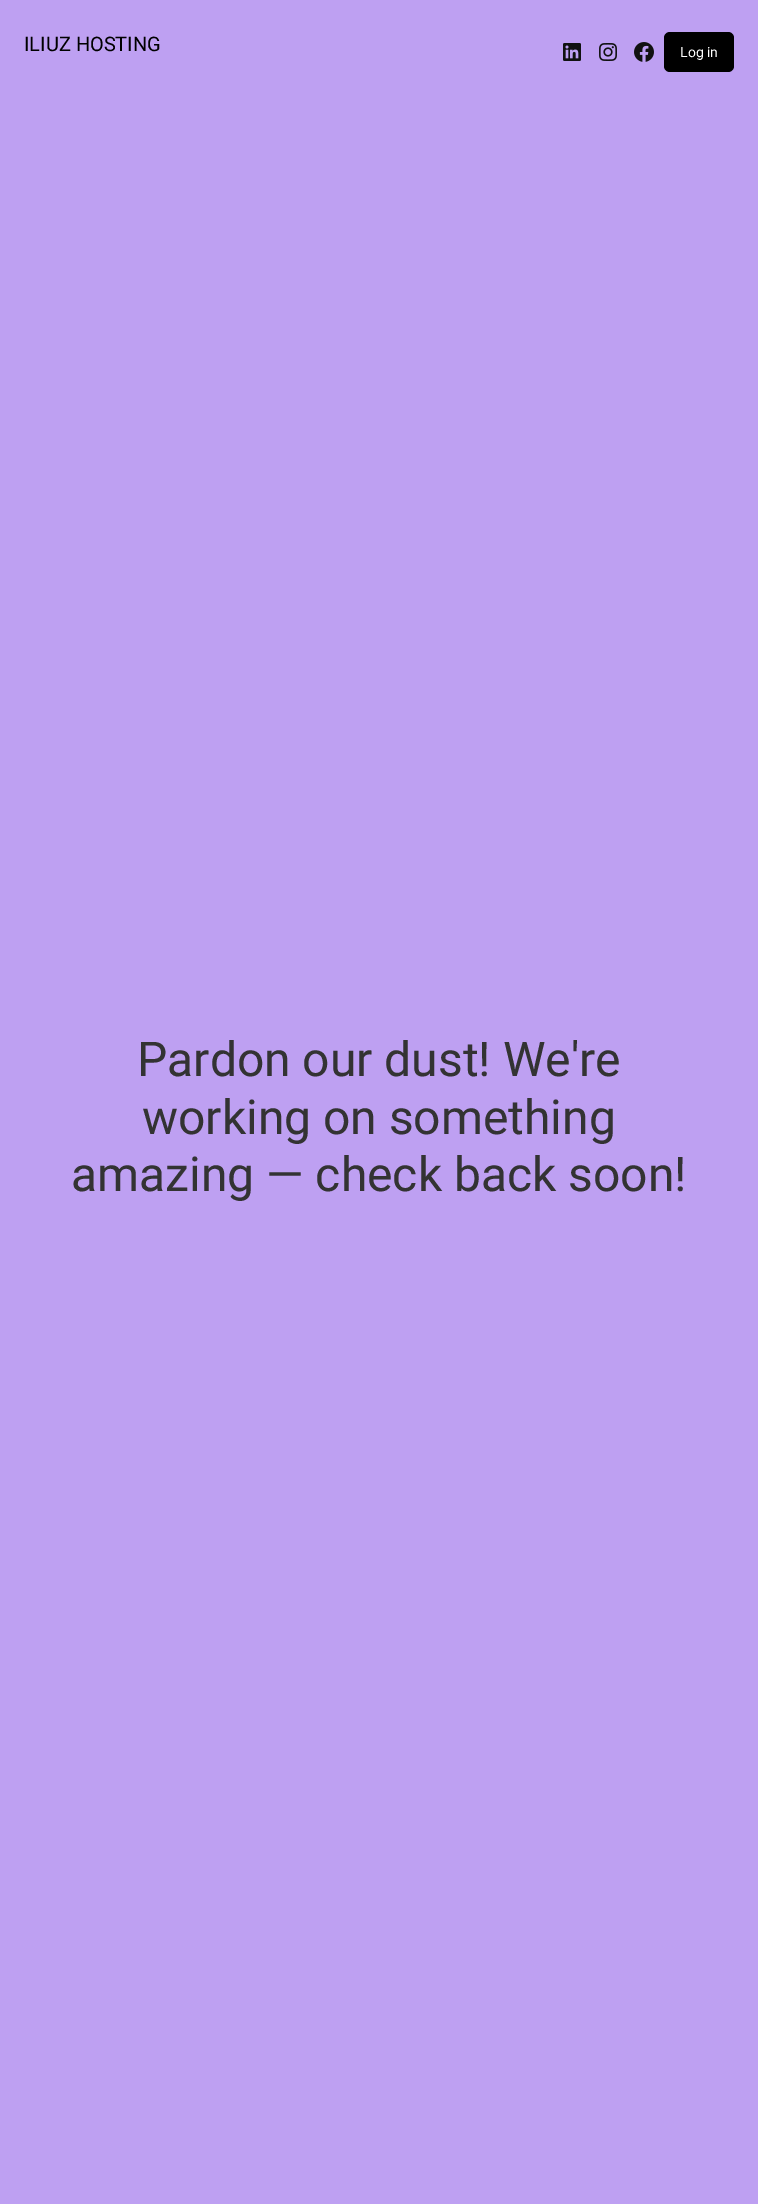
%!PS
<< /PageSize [758 2204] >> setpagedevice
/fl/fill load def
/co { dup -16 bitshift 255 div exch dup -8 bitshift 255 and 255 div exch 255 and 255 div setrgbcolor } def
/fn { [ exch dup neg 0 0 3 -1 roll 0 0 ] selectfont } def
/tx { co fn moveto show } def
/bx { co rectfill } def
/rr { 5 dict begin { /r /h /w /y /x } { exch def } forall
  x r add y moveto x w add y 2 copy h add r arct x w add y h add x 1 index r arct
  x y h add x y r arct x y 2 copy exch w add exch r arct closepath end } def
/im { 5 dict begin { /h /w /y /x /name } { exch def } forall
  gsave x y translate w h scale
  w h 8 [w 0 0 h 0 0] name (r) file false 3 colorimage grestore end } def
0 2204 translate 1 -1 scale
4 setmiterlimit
0 0 758 2204 16#BEA0F2 bx
(media/1.raw) 563 43 18 18 im
(media/2.raw) 599 43 18 18 im
(media/3.raw) 634 42 20 20 im
16#000000 co
664 32 70 40 6 rr fl
(ILIUZ HOSTING) 24 51 /Roboto-Regular 20 16#000000 tx
(Log in) 680 57 /Roboto-Regular 14 16#FFFFFF tx
(Pardon our dust! We're) 137 1076 /Roboto-Regular 48 16#333333 tx
(working on something) 142 1134 /Roboto-Regular 48 16#333333 tx
(amazing — check back soon!) 71 1191 /Roboto-Regular 48 16#333333 tx
showpage
